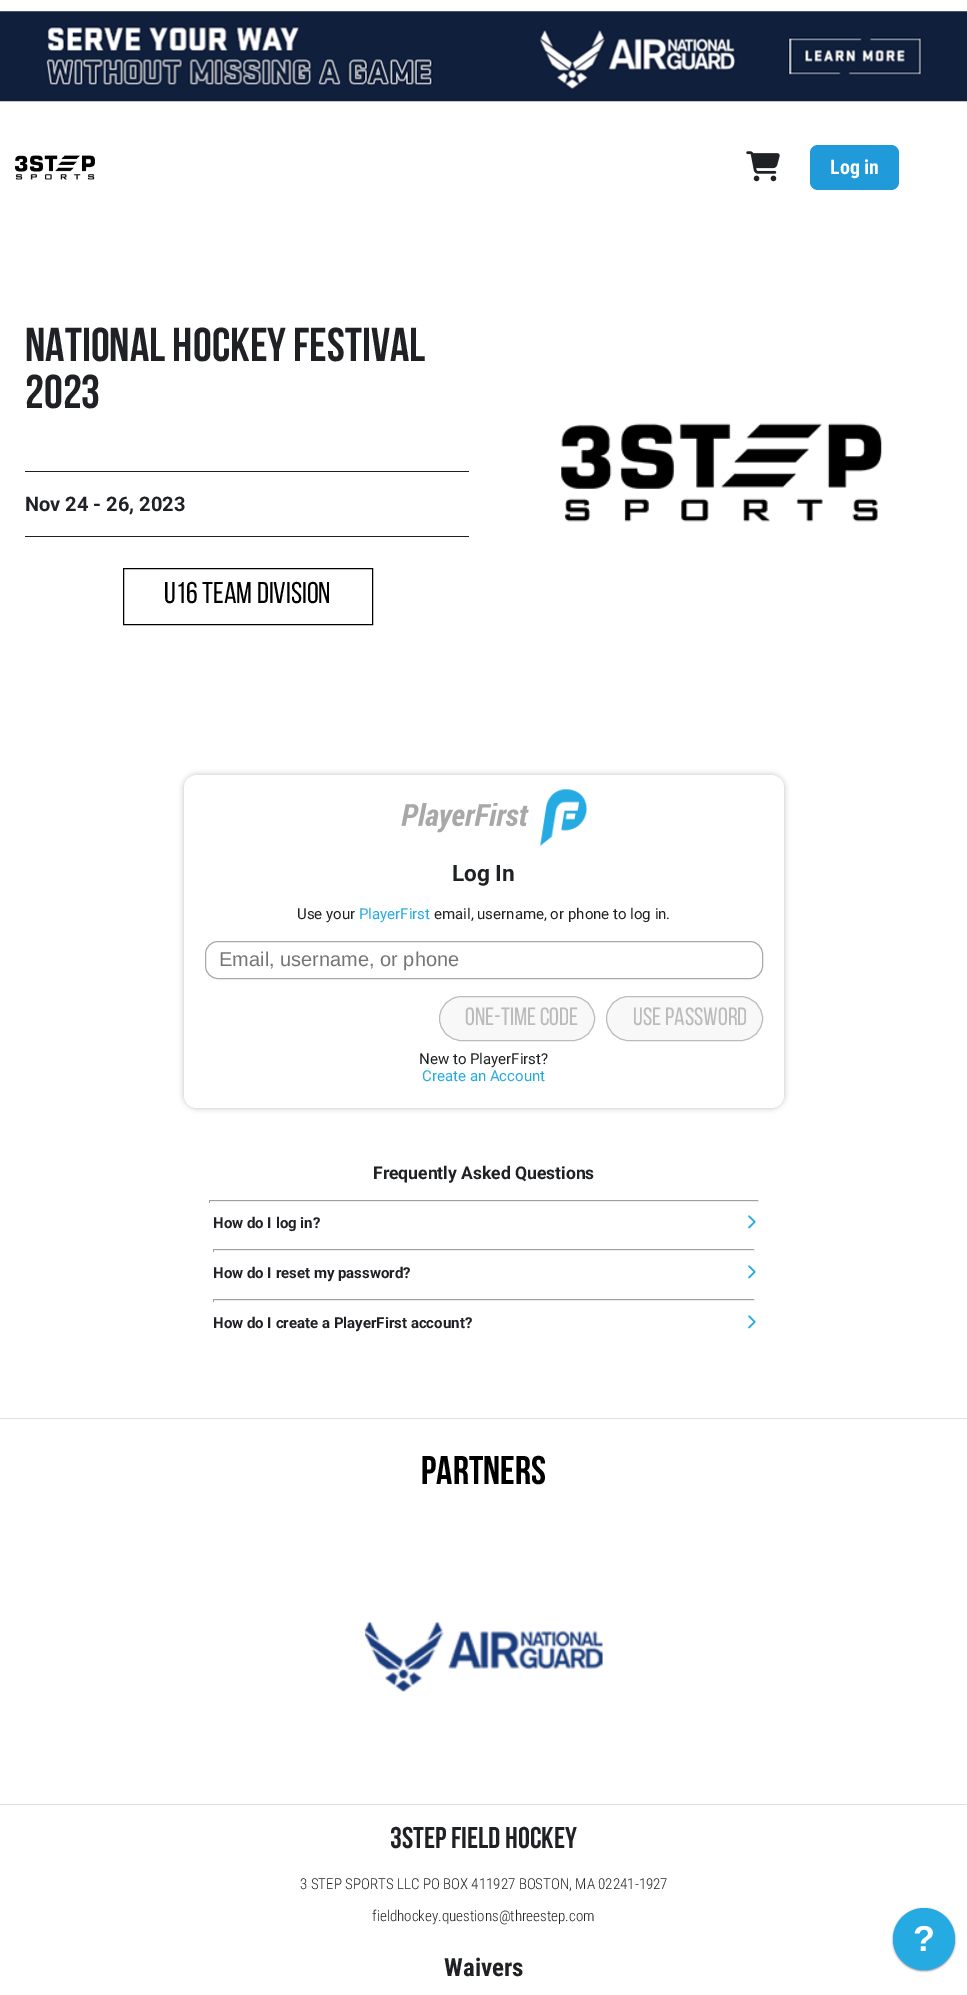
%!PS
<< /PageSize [967 1995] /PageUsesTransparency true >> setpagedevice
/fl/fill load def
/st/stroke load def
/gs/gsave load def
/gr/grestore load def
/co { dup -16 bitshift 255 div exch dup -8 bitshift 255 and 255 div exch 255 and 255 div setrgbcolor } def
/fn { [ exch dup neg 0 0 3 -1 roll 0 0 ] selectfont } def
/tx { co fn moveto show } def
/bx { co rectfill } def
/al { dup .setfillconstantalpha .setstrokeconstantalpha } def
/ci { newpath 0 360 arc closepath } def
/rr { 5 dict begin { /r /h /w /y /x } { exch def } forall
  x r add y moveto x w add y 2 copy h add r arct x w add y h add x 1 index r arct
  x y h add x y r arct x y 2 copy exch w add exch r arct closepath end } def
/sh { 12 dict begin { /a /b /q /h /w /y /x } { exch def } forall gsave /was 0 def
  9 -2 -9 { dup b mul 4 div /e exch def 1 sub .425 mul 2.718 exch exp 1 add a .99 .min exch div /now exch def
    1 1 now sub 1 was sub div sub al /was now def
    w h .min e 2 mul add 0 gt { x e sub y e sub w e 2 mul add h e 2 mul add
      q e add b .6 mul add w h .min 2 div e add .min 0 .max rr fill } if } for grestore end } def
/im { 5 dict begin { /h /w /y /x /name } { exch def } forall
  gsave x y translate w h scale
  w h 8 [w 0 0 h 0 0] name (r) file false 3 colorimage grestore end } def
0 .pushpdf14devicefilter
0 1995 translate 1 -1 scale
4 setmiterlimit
0 0 967 1995 16#FFFFFF bx
(media/1.raw) 0 11 967 91 im
(media/2.raw) 15 155 80 25 im
(media/3.raw) 746 151 34 31 im
16#219AD9 co
810 145 89 45 8 rr fl
25 471 444 1 16#202124 bx
25 536 444 1 16#202124 bx
16#000000 co
123.5 568.5 249 56 rectstroke
(media/4.raw) 561 423 321 99 im
184 775 600 333 13 3 .25 sh
16#FFFFFF co
184 775 600 333 13 rr fl
(media/5.raw) 401 803 128 30 im
(media/6.raw) 540 788 48 58 im
16#AAAAAA co
205.5 941.5 557 37 12.5 rr st
16#F8F8F8 co
439.5 996.5 155 44 22 rr gs fl gr
16#BBBBBB co
st
16#F8F8F8 co
606.5 996.5 156 44 22 rr gs fl gr
16#BBBBBB co
st
209 1200 550 1 16#9F9F9F bx
758 1200 1 3 16#EEEEEE bx
209 1201 550 1 16#EEEEEE bx
209 1200 1 3 16#9F9F9F bx
(media/7.raw) 748 1215 8 14 im
213 1249 542 1 16#9F9F9F bx
754 1249 1 3 16#EEEEEE bx
213 1250 542 1 16#EEEEEE bx
213 1249 1 3 16#9F9F9F bx
(media/7.raw) 748 1265 8 14 im
213 1299 542 1 16#9F9F9F bx
754 1299 1 3 16#EEEEEE bx
213 1300 542 1 16#EEEEEE bx
213 1299 1 3 16#9F9F9F bx
(media/7.raw) 748 1315 8 14 im
0 1418 967 1 16#E0E0E0 bx
(media/8.raw) 364 1622 239 70 im
0 1804 967 1 16#E0E0E0 bx
16#7A869A co
893 1909 62 62 31 1 1 sh
16#25AAE1 co
924 1939 31 ci fl
(Log in) 830 174 /RobotoCondensed-Bold 20 16#FFFFFF tx
(National Hockey Festival) 25 361 /BebasNeue-Bold 47.5 16#202124 tx
(2023) 25 408 /BebasNeue-Bold 47.5 16#202124 tx
(Nov 24 - 26, 2023) 25 511 /Roboto-Bold 20 16#202124 tx
(U16 Team Division) 164 603 /BebasNeue-Regular 30 16#000000 tx
(Log In) 452 881 /Roboto-Bold 22.5 16#202124 tx
(Use your) 297 919 /Roboto-Regular 15 16#202124 tx
(PlayerFirst) 359 919 /Roboto-Regular 15 16#25AAE1 tx
(email, username, or phone to log in.) 434 919 /Roboto-Regular 15 16#202124 tx
(Email, username, or phone) 219 966 /LiberationSans-Regular 20 16#757575 tx
(One-Time Code) 465 1025 /BebasNeue-Regular 25 16#BBBBBB tx
(Use Password) 633 1025 /BebasNeue-Regular 25 16#BBBBBB tx
(New to PlayerFirst?) 419 1064 /Roboto-Regular 15 16#202124 tx
(Create an Account) 422 1081 /Roboto-Regular 15 16#25AAE1 tx
(Frequently Asked Questions) 373 1179 /Roboto-Bold 17.5 16#202124 tx
(How do I log in?) 213 1228 /Roboto-Bold 15 16#202124 tx
(How do I reset my password?) 213 1278 /Roboto-Bold 15 16#202124 tx
(How do I create a PlayerFirst account?) 213 1328 /Roboto-Bold 15 16#202124 tx
(Partners) 421 1484 /BebasNeue-Bold 40 16#000000 tx
(3STEP Field Hockey) 390 1848 /BebasNeue-Bold 30 16#202124 tx
(3 STEP SPORTS LLC PO BOX 411927 BOSTON, MA 02241-1927) 300 1889 /RobotoCondensed-Light 15 16#202124 tx
(fieldhockey.questions@threestep.com) 372 1921 /RobotoCondensed-Light 15 16#202124 tx
(Waivers) 444 1976 /RobotoCondensed-Bold 25 16#202124 tx
(?) 913 1951 /LiberationSans-Bold 36 16#FFFFFF tx
.poppdf14devicefilter showpage
